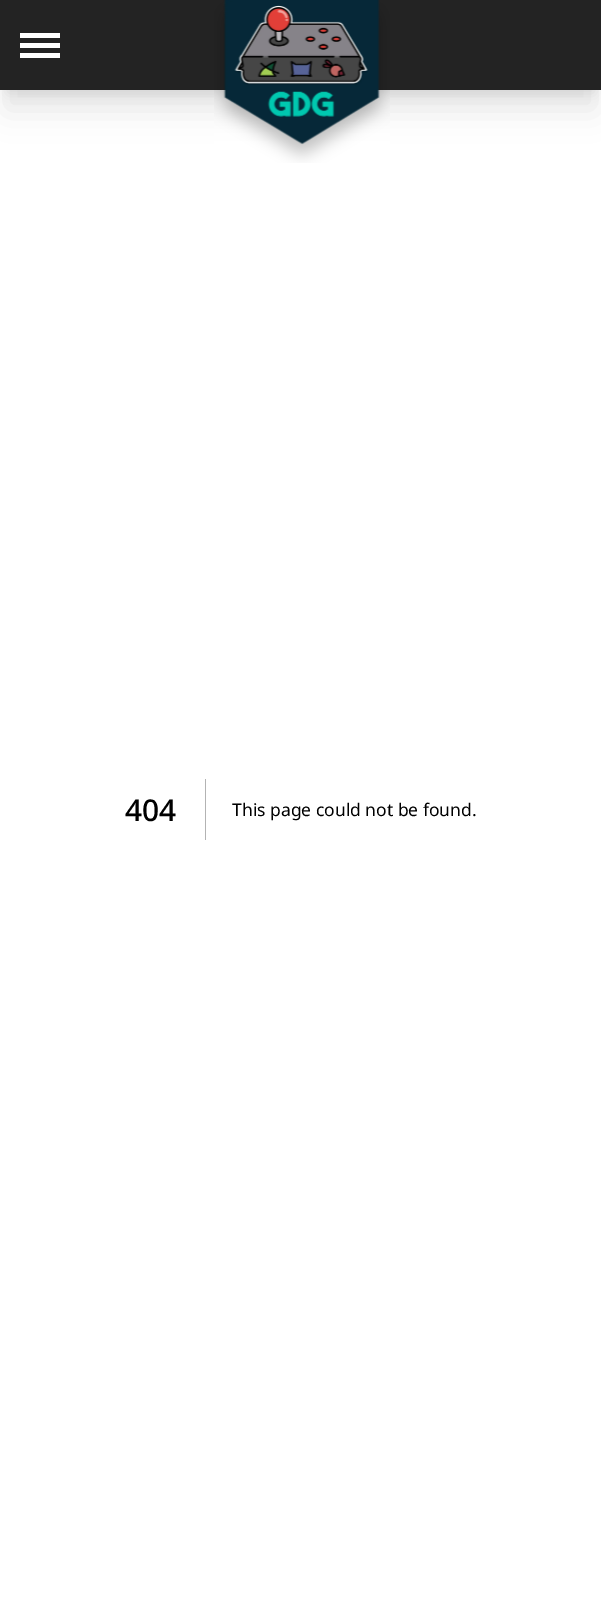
%!PS
<< /PageSize [601 1617] /PageUsesTransparency true >> setpagedevice
/co { dup -16 bitshift 255 div exch dup -8 bitshift 255 and 255 div exch 255 and 255 div setrgbcolor } def
/fn { [ exch dup neg 0 0 3 -1 roll 0 0 ] selectfont } def
/tx { co fn moveto show } def
/bx { co rectfill } def
/al { dup .setfillconstantalpha .setstrokeconstantalpha } def
/rr { 5 dict begin { /r /h /w /y /x } { exch def } forall
  x r add y moveto x w add y 2 copy h add r arct x w add y h add x 1 index r arct
  x y h add x y r arct x y 2 copy exch w add exch r arct closepath end } def
/sh { 12 dict begin { /a /b /q /h /w /y /x } { exch def } forall gsave /was 0 def
  9 -2 -9 { dup b mul 4 div /e exch def 1 sub .425 mul 2.718 exch exp 1 add a .99 .min exch div /now exch def
    1 1 now sub 1 was sub div sub al /was now def
    w h .min e 2 mul add 0 gt { x e sub y e sub w e 2 mul add h e 2 mul add
      q e add b .6 mul add w h .min 2 div e add .min 0 .max rr fill } if } for grestore end } def
/im { 5 dict begin { /h /w /y /x /name } { exch def } forall
  gsave x y translate w h scale
  w h 8 [w 0 0 h 0 0] name (r) file false 3 colorimage grestore end } def
0 .pushpdf14devicefilter
0 1617 translate 1 -1 scale
4 setmiterlimit
0 0 601 1617 16#FFFFFF bx
16#000000 co
8 18 586 75 0 6 .1 sh
6 31 589 78 0 15.5 .1 sh
0 0 601 90 16#232323 bx
20 33 40 5 16#FFFFFF bx
20 43 40 5 16#FFFFFF bx
20 53 40 5 16#FFFFFF bx
(media/1.raw) 214 0 176 163 im
205 779 1 61 16#B3B3B3 bx
(404) 125 821 /NotoSans-Medium 30 16#000000 tx
(This page could not be found.) 232 816 /NotoSans-Regular 17.5 16#000000 tx
.poppdf14devicefilter showpage
